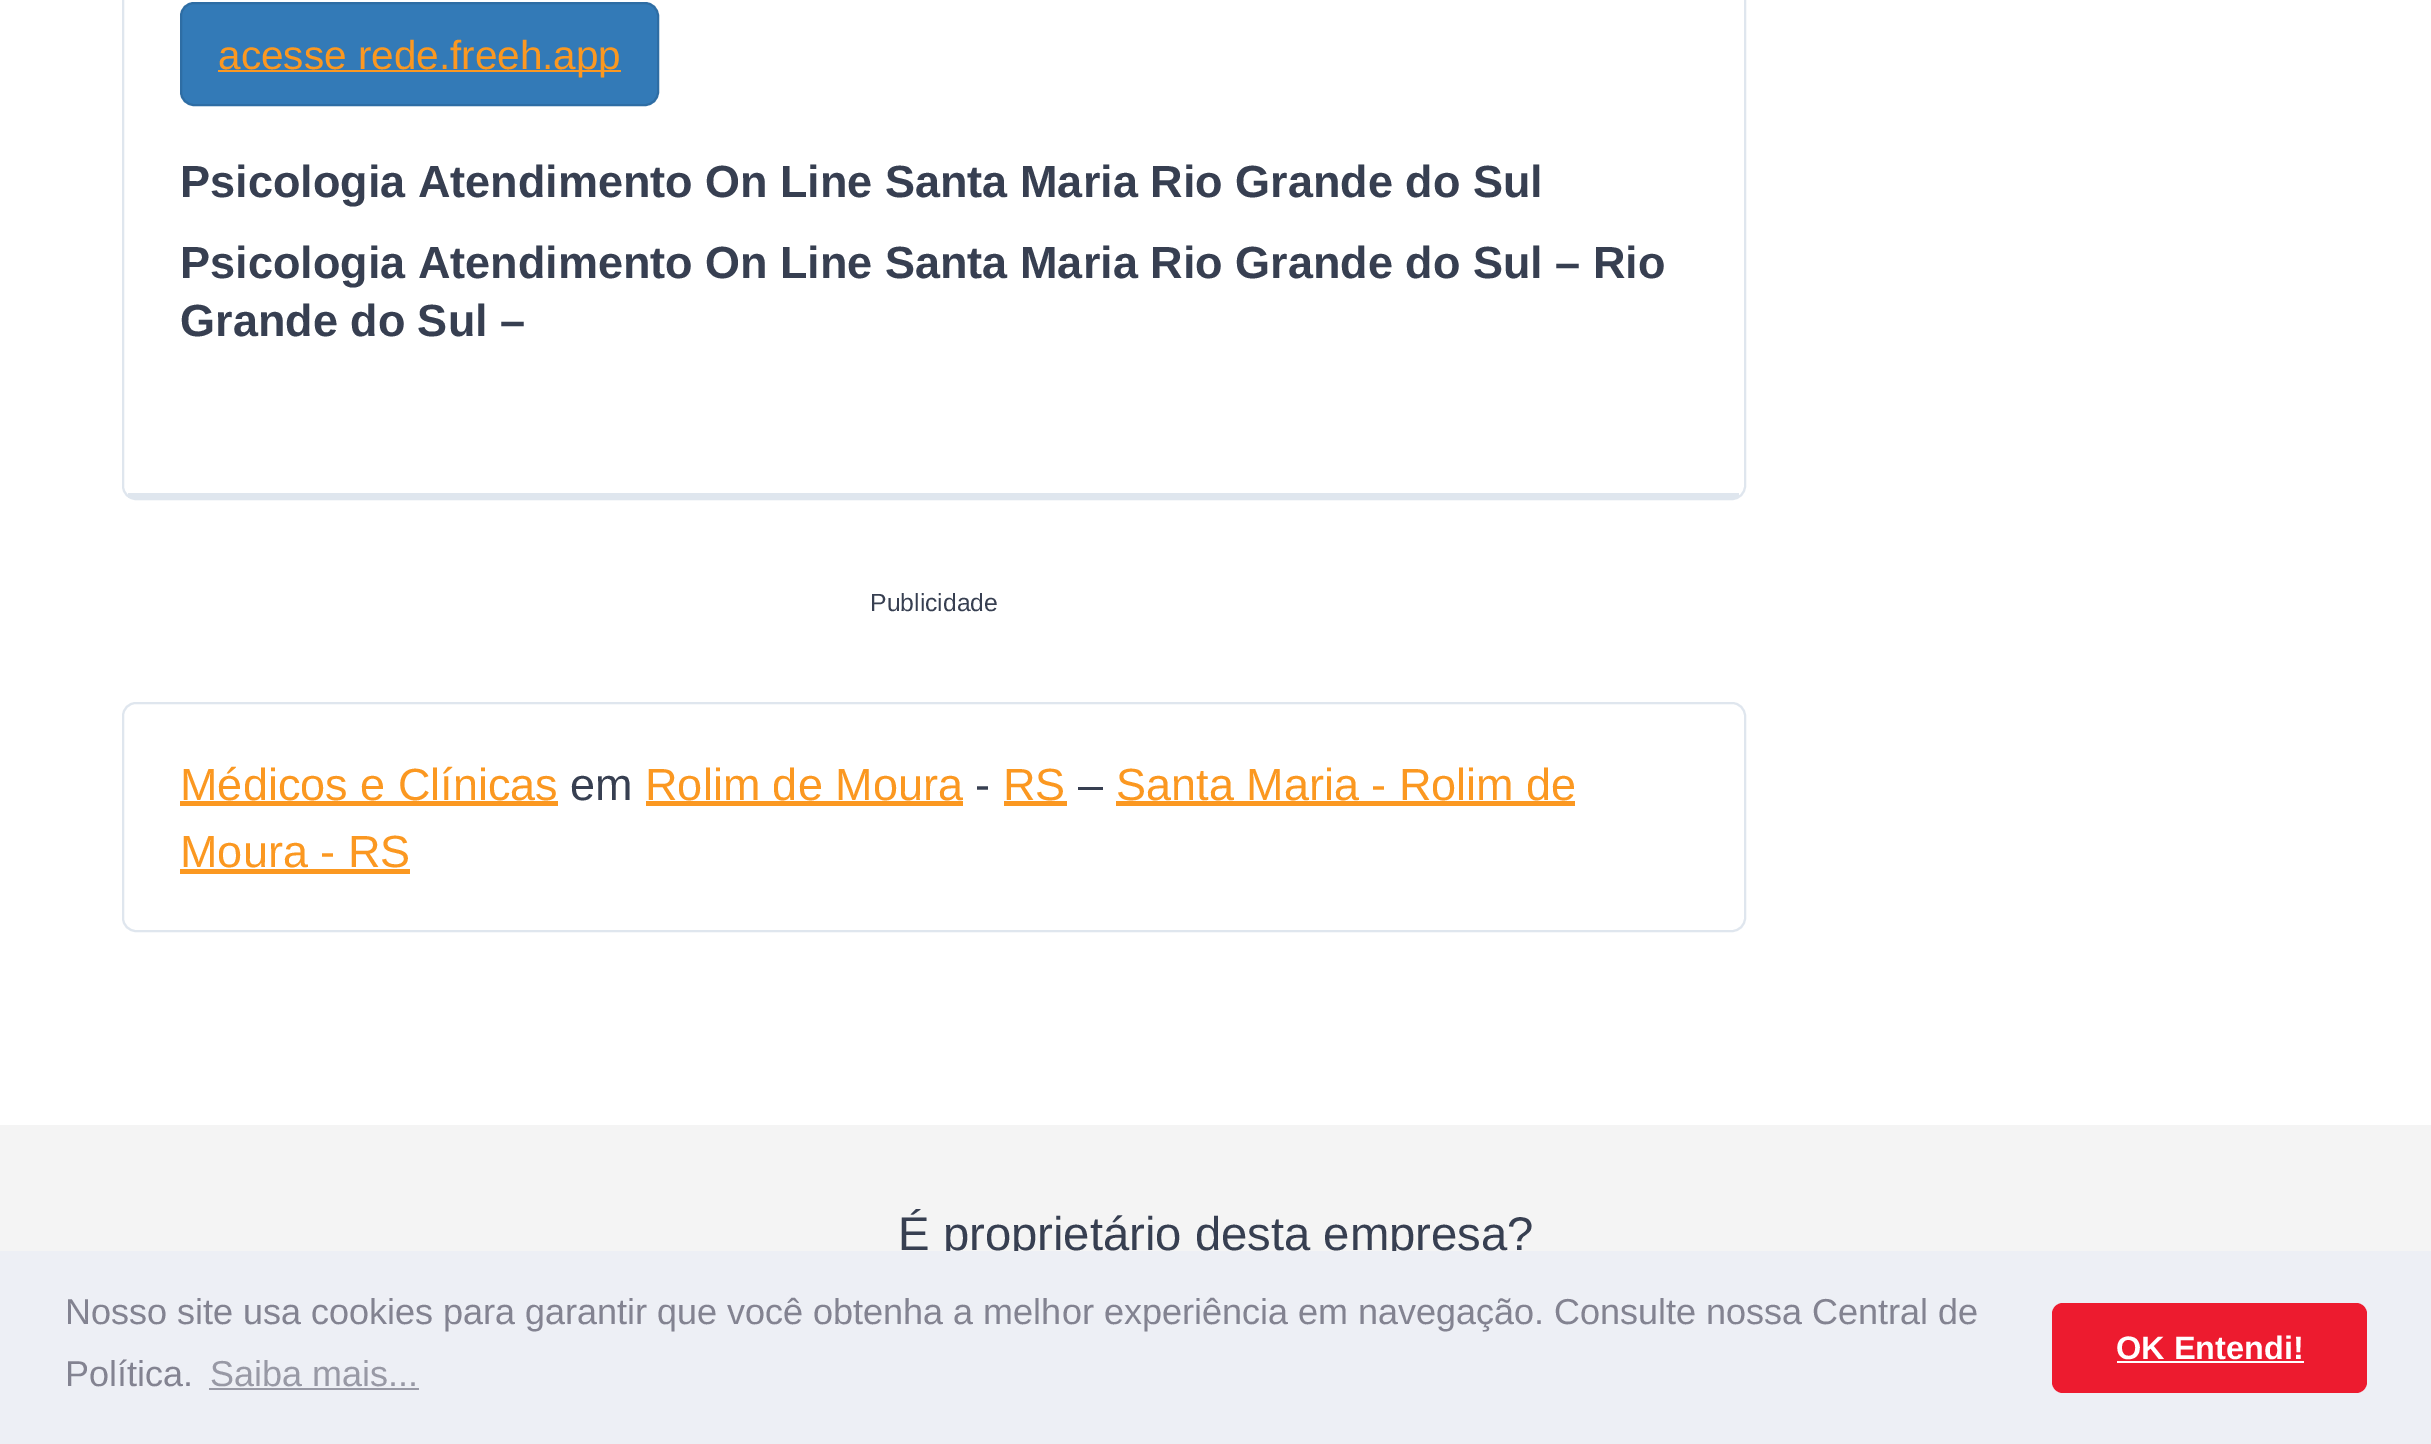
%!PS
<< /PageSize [2431 1444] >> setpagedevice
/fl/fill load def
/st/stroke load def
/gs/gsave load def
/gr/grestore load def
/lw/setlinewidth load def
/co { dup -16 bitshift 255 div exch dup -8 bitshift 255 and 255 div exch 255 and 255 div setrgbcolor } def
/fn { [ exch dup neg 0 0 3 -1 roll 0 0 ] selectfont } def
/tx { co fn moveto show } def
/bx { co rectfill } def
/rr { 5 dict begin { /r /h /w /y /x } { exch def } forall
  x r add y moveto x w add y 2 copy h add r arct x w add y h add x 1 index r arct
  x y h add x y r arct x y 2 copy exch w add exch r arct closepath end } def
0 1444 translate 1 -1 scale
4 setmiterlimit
0 0 2431 1444 16#FFFFFF bx
16#DFE6EE co
2 lw
123 -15 1622 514 13 rr st
128 493 1611 5 16#DFE6EE bx
16#337AB7 co
181 3 477 102 13 rr gs fl gr
16#2E6DA4 co
st
218 70 403 2 16#FB9821 bx
16#DFE6EE co
123 703 1622 228 13 rr st
180 801 378 5 16#FB9821 bx
646 801 317 5 16#FB9821 bx
1004 801 63 5 16#FB9821 bx
1116 801 459 5 16#FB9821 bx
180 869 230 5 16#FB9821 bx
0 1125 2431 126 16#F4F4F4 bx
(acesse rede.freeh.app) 218 69 /LiberationSans-Regular 40.5 16#FB9821 tx
(Psicologia Atendimento On Line Santa Maria Rio Grande do Sul) 180 197 /LiberationSans-Bold 45 16#373F51 tx
(Psicologia Atendimento On Line Santa Maria Rio Grande do Sul – Rio) 180 278 /LiberationSans-Bold 45 16#373F51 tx
(Grande do Sul –) 180 336 /LiberationSans-Bold 45 16#373F51 tx
(Publicidade) 870 611 /LiberationSans-Regular 24.75 16#373F51 tx
(Médicos e Clínicas) 180 800 /LiberationSans-Regular 45 16#FB9821 tx
(em) 570 800 /LiberationSans-Regular 45 16#373F51 tx
(Rolim de Moura) 645 800 /LiberationSans-Regular 45 16#FB9821 tx
(-) 975 800 /LiberationSans-Regular 45 16#373F51 tx
(RS) 1003 800 /LiberationSans-Regular 45 16#FB9821 tx
(–) 1078 800 /LiberationSans-Regular 45 16#373F51 tx
(Santa Maria - Rolim de) 1116 800 /LiberationSans-Regular 45 16#FB9821 tx
(Moura - RS) 180 867 /LiberationSans-Regular 45 16#FB9821 tx
(É proprietário desta empresa?) 898 1250 /LiberationSans-Regular 47.25 16#373F51 tx
0 1251 2431 193 16#EDEFF5 bx
(Nosso site usa cookies para garantir que você obtenha a melhor experiência em navegação. Consulte nossa Central de) 65 1324 /LiberationSans-Regular 36 16#838391 tx
(Política.) 65 1386 /LiberationSans-Regular 36 16#838391 tx
(Saiba mais...) 210 1386 /LiberationSans-Regular 36 16#9899A5 tx
209 1388 210 2 16#9899A5 bx
16#ED1B2F co
2052 1303 315 90 11 rr fl
(OK Entendi!) 2116 1359 /LiberationSans-Bold 32.5 16#FFFFFF tx
2117 1361 187 2 16#FFFFFF bx
showpage
